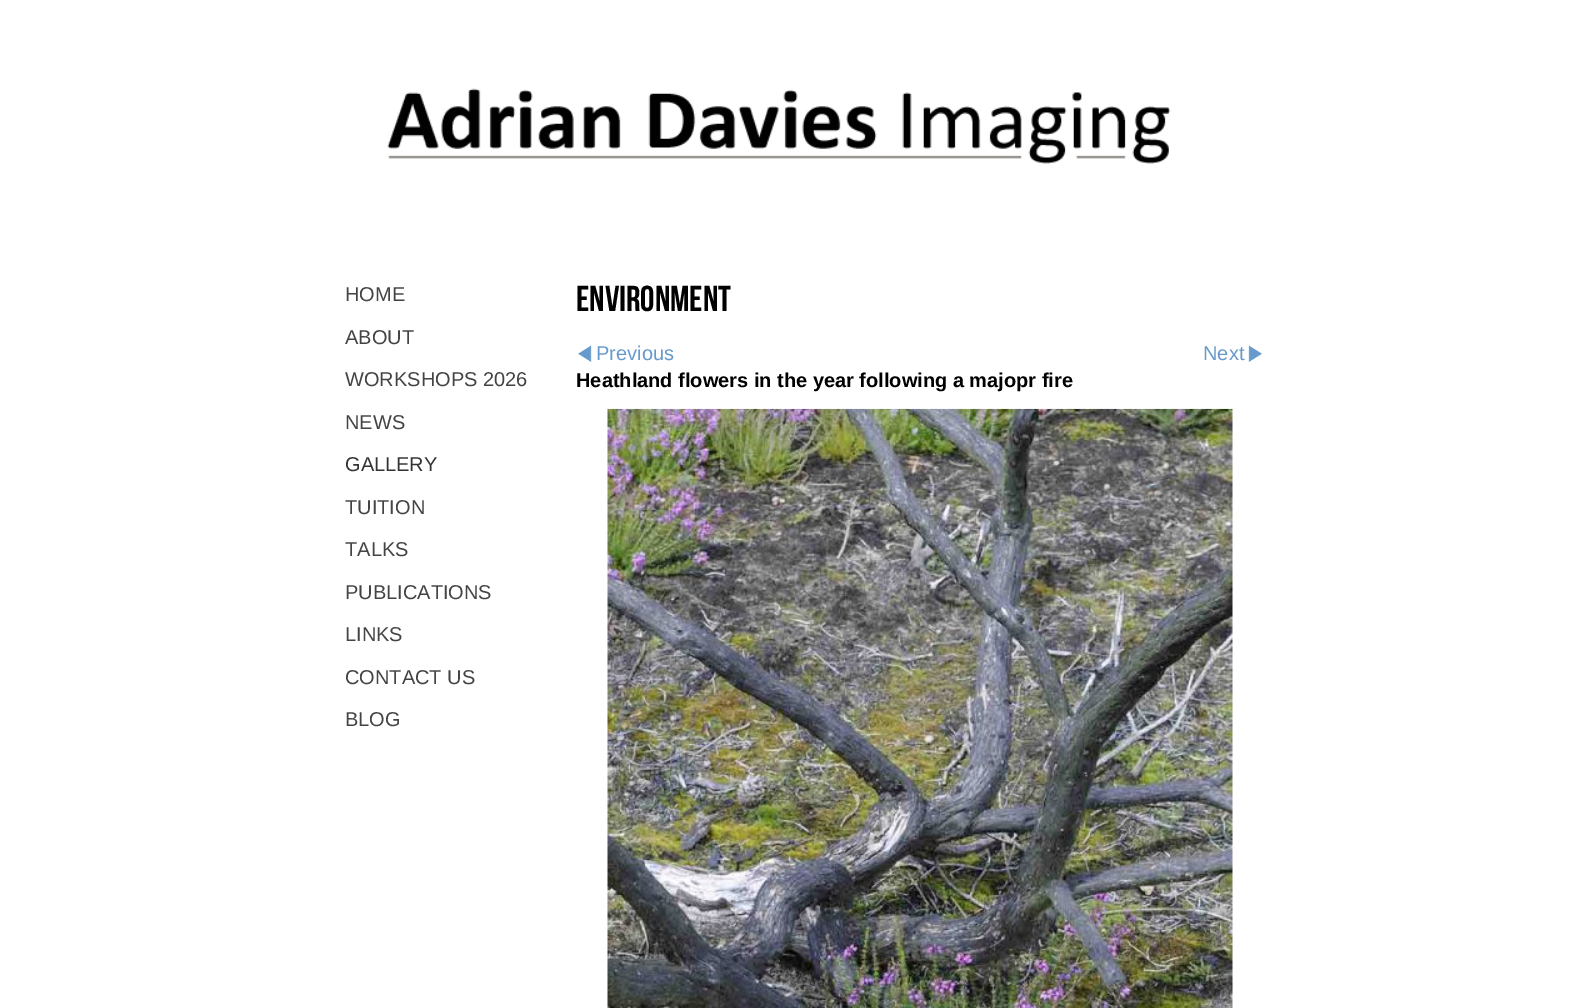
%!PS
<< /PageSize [1590 1008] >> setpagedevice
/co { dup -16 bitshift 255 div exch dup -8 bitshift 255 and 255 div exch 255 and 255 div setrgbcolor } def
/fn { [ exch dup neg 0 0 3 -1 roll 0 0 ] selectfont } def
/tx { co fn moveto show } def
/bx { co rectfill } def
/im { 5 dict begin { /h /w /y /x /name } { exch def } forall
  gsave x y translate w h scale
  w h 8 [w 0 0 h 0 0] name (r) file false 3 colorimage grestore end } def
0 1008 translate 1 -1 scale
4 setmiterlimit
0 0 1590 1008 16#FFFFFF bx
(media/1.raw) 387 88 784 76 im
(media/2.raw) 578 345 14 17 im
(media/3.raw) 1248 345 14 17 im
(media/4.raw) 607 408 626 600 im
(HOME) 345 301 /LiberationSans-Regular 20 16#444444 tx
(ABOUT) 345 344 /LiberationSans-Regular 20 16#444444 tx
(WORKSHOPS 2026) 345 386 /LiberationSans-Regular 20 16#444444 tx
(NEWS) 345 429 /LiberationSans-Regular 20 16#444444 tx
(GALLERY) 345 471 /LiberationSans-Regular 20 16#333333 tx
(TUITION) 345 514 /LiberationSans-Regular 20 16#444444 tx
(TALKS) 345 556 /LiberationSans-Regular 20 16#444444 tx
(PUBLICATIONS) 345 599 /LiberationSans-Regular 20 16#444444 tx
(LINKS) 345 641 /LiberationSans-Regular 20 16#444444 tx
(CONTACT US) 345 684 /LiberationSans-Regular 20 16#444444 tx
(BLOG) 345 726 /LiberationSans-Regular 20 16#444444 tx
(Environment) 576 311 /BebasNeue-Regular 36 16#000000 tx
(Previous) 596 360 /LiberationSans-Regular 20 16#6699CC tx
(Next) 1203 360 /LiberationSans-Regular 20 16#6699CC tx
(Heathland flowers in the year following a majopr fire) 576 387 /LiberationSans-Bold 20 16#000000 tx
showpage
